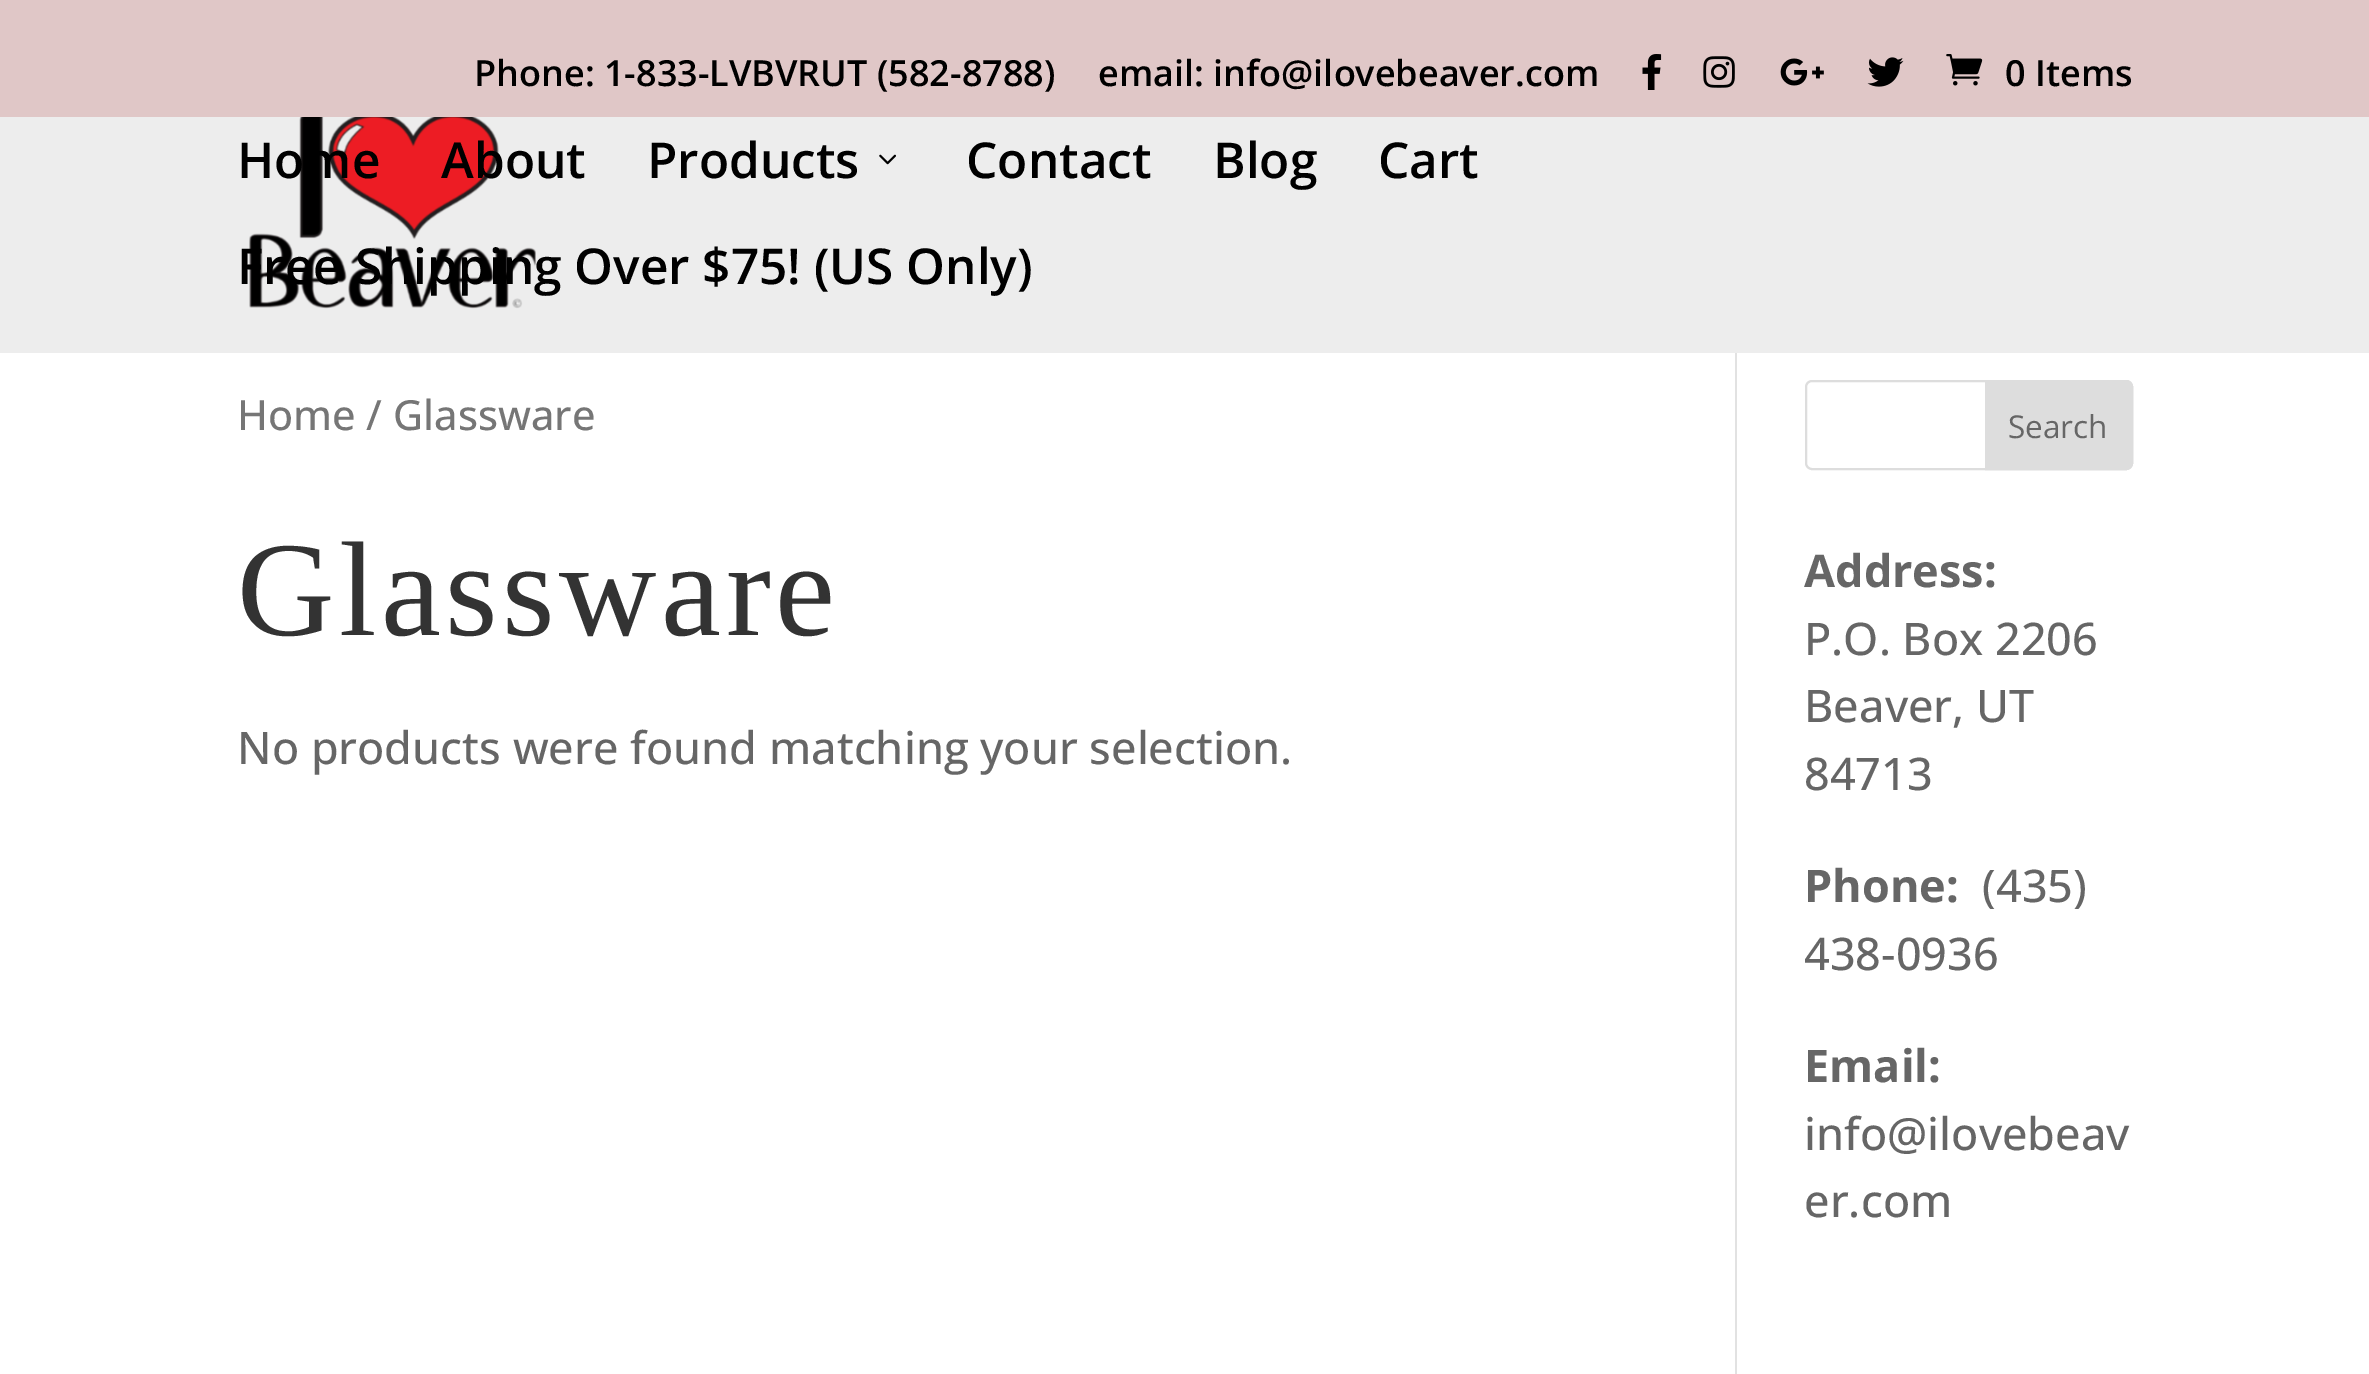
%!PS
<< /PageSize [2369 1374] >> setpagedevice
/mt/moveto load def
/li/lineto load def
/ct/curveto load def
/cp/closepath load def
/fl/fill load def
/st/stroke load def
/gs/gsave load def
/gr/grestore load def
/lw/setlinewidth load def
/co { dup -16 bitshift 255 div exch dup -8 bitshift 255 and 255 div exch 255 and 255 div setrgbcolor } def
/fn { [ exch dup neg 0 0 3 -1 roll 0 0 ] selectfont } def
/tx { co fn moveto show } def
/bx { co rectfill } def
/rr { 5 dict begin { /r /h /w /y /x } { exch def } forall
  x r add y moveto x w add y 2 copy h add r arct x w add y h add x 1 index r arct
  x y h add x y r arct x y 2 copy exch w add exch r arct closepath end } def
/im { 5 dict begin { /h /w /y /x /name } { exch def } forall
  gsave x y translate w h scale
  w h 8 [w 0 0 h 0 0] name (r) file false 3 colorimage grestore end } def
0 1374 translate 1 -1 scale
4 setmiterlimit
0 0 2369 1374 16#FFFFFF bx
0 0 2369 117 16#E0C7C7 bx
(media/1.raw) 1642 54 20 36 im
(media/2.raw) 1703 56 32 32 im
(media/3.raw) 1780 58 44 28 im
(media/4.raw) 1867 57 37 30 im
(media/5.raw) 1946 54 37 32 im
0 117 2369 236 16#EDEDED bx
(media/6.raw) 249 117 287 192 im
(media/7.raw) 879 154 17 11 im
1735 353 2 1021 16#E2E2E2 bx
16#DDDDDD co
2 lw
1806 381 326 88 6 rr st
1986 381 mt 2126 381 li 2129.5 381 2132 383.5 2132 387 ct 2132 463 li 2132 466.5 2129.5 469 2126 469 ct 1986 469 li cp gs fl gr
st
(Phone: 1-833-LVBVRUT \(582-8788\)) 474 86 /OpenSans-SemiBold 36 16#000000 tx
(email: info@ilovebeaver.com) 1098 86 /OpenSans-SemiBold 36 16#000000 tx
(0 Items) 2005 86 /OpenSans-SemiBold 36 16#000000 tx
(Home) 237 178 /OpenSans-SemiBold 49.5 16#000000 tx
(About) 441 178 /OpenSans-SemiBold 49.5 16#000000 tx
(Products) 647 178 /OpenSans-SemiBold 49.5 16#000000 tx
(Contact) 966 178 /OpenSans-SemiBold 49.5 16#000000 tx
(Blog) 1213 178 /OpenSans-SemiBold 49.5 16#000000 tx
(Cart) 1378 178 /OpenSans-SemiBold 49.5 16#000000 tx
(Free Shipping Over $75! \(US Only\)) 237 284 /OpenSans-SemiBold 49.5 16#000000 tx
(Home / Glassware) 237 430 /OpenSans-Medium 41.5 16#767676 tx
/LiberationSerif-Regular 135 fn
16#333333 co
237 635 mt 4.5 0 (Glassware) ashow
(No products were found matching your selection.) 237 764 /OpenSans-Medium 45 16#666666 tx
(Search) 2008 438 /OpenSans-Regular 31.5 16#666666 tx
(Address:) 1804 587 /OpenSans-Bold 45 16#666666 tx
(P.O. Box 2206) 1804 655 /OpenSans-Medium 45 16#666666 tx
(Beaver, UT) 1804 722 /OpenSans-Medium 45 16#666666 tx
(84713) 1804 790 /OpenSans-Medium 45 16#666666 tx
(Phone:) 1804 902 /OpenSans-Bold 45 16#666666 tx
(\(435\)) 1982 902 /OpenSans-Medium 45 16#666666 tx
(438-0936) 1804 970 /OpenSans-Medium 45 16#666666 tx
(Email:) 1804 1082 /OpenSans-Bold 45 16#666666 tx
(info@ilovebeav) 1804 1150 /OpenSans-Medium 45 16#666666 tx
(er.com) 1804 1217 /OpenSans-Medium 45 16#666666 tx
showpage
